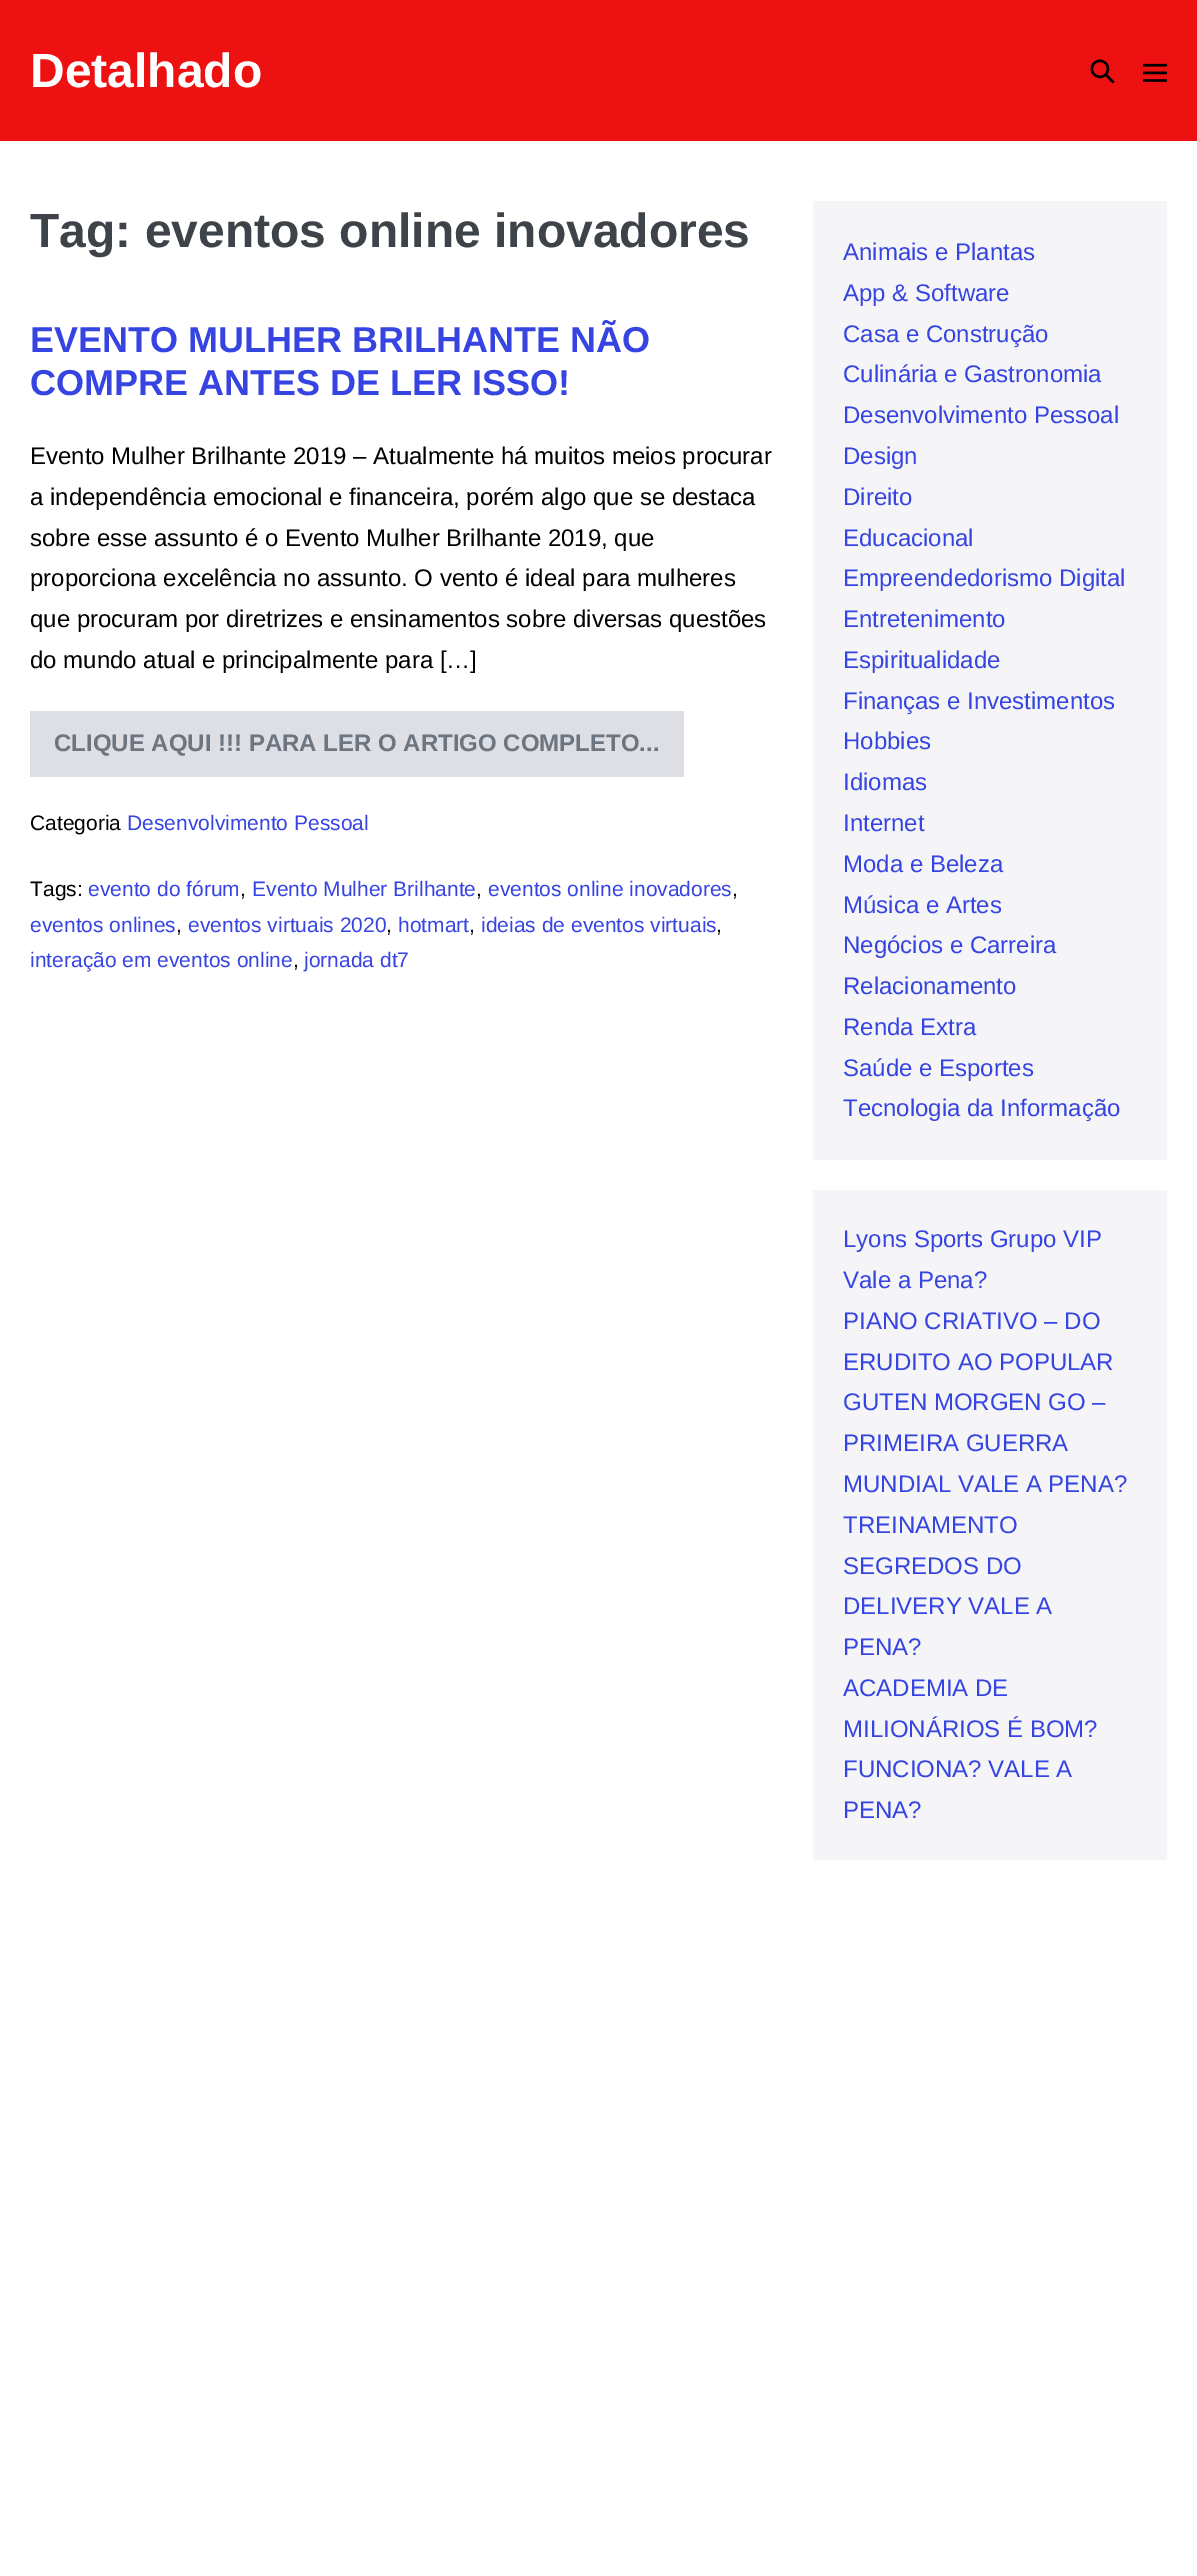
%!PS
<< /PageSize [1197 2576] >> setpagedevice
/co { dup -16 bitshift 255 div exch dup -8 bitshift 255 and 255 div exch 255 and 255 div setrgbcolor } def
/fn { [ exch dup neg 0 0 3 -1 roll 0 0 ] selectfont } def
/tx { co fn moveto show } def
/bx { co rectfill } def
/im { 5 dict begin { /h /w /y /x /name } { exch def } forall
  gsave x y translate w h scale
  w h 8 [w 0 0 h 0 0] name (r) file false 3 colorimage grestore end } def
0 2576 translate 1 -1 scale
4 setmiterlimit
0 0 1197 2576 16#FFFFFF bx
0 0 1197 141 16#ED1111 bx
(media/1.raw) 1090 59 25 25 im
(media/2.raw) 1143 63 25 19 im
30 711 654 66 16#DEDEE5 bx
813 201 354 959 16#F5F5F7 bx
813 1190 354 670 16#F5F5F7 bx
(Detalhado) 30 87 /LiberationSans-Bold 48 16#FFFFFF tx
(Tag: eventos online inovadores) 30 247 /LiberationSans-Bold 48 16#3E4349 tx
(EVENTO MULHER BRILHANTE NÃO) 30 352 /LiberationSans-Bold 36 16#3644E2 tx
(COMPRE ANTES DE LER ISSO!) 30 395 /LiberationSans-Bold 36 16#3644E2 tx
(Evento Mulher Brilhante 2019 – Atualmente há muitos meios procurar) 30 464 /LiberationSans-Regular 24 16#000000 tx
(a independência emocional e financeira, porém algo que se destaca) 30 505 /LiberationSans-Regular 24 16#000000 tx
(sobre esse assunto é o Evento Mulher Brilhante 2019, que) 30 546 /LiberationSans-Regular 24 16#000000 tx
(proporciona excelência no assunto. O vento é ideal para mulheres) 30 586 /LiberationSans-Regular 24 16#000000 tx
(que procuram por diretrizes e ensinamentos sobre diversas questões) 30 627 /LiberationSans-Regular 24 16#000000 tx
(do mundo atual e principalmente para […]) 30 668 /LiberationSans-Regular 24 16#000000 tx
(CLIQUE AQUI !!! PARA LER O ARTIGO COMPLETO...) 54 751 /LiberationSans-Bold 24 16#6D7680 tx
(Categoria) 30 830 /LiberationSans-Regular 21 16#000000 tx
(Desenvolvimento Pessoal) 127 830 /LiberationSans-Regular 21 16#3644E2 tx
(Tags:) 30 896 /LiberationSans-Regular 21 16#000000 tx
(evento do fórum) 88 896 /LiberationSans-Regular 21 16#3644E2 tx
(,) 240 896 /LiberationSans-Regular 21 16#000000 tx
(Evento Mulher Brilhante) 252 896 /LiberationSans-Regular 21 16#3644E2 tx
(,) 476 896 /LiberationSans-Regular 21 16#000000 tx
(eventos online inovadores) 488 896 /LiberationSans-Regular 21 16#3644E2 tx
(,) 732 896 /LiberationSans-Regular 21 16#000000 tx
(eventos onlines) 30 932 /LiberationSans-Regular 21 16#3644E2 tx
(,) 176 932 /LiberationSans-Regular 21 16#000000 tx
(eventos virtuais 2020) 188 932 /LiberationSans-Regular 21 16#3644E2 tx
(,) 386 932 /LiberationSans-Regular 21 16#000000 tx
(hotmart) 398 932 /LiberationSans-Regular 21 16#3644E2 tx
(,) 469 932 /LiberationSans-Regular 21 16#000000 tx
(ideias de eventos virtuais) 481 932 /LiberationSans-Regular 21 16#3644E2 tx
(,) 716 932 /LiberationSans-Regular 21 16#000000 tx
(interação em eventos online) 30 967 /LiberationSans-Regular 21 16#3644E2 tx
(,) 293 967 /LiberationSans-Regular 21 16#000000 tx
(jornada dt7) 304 967 /LiberationSans-Regular 21 16#3644E2 tx
(Animais e Plantas) 843 260 /LiberationSans-Regular 24 16#3644E2 tx
(App & Software) 843 301 /LiberationSans-Regular 24 16#3644E2 tx
(Casa e Construção) 843 342 /LiberationSans-Regular 24 16#3644E2 tx
(Culinária e Gastronomia) 843 382 /LiberationSans-Regular 24 16#3644E2 tx
(Desenvolvimento Pessoal) 843 423 /LiberationSans-Regular 24 16#3644E2 tx
(Design) 843 464 /LiberationSans-Regular 24 16#3644E2 tx
(Direito) 843 505 /LiberationSans-Regular 24 16#3644E2 tx
(Educacional) 843 546 /LiberationSans-Regular 24 16#3644E2 tx
(Empreendedorismo Digital) 843 586 /LiberationSans-Regular 24 16#3644E2 tx
(Entretenimento) 843 627 /LiberationSans-Regular 24 16#3644E2 tx
(Espiritualidade) 843 668 /LiberationSans-Regular 24 16#3644E2 tx
(Finanças e Investimentos) 843 709 /LiberationSans-Regular 24 16#3644E2 tx
(Hobbies) 843 749 /LiberationSans-Regular 24 16#3644E2 tx
(Idiomas) 843 790 /LiberationSans-Regular 24 16#3644E2 tx
(Internet) 843 831 /LiberationSans-Regular 24 16#3644E2 tx
(Moda e Beleza) 843 872 /LiberationSans-Regular 24 16#3644E2 tx
(Música e Artes) 843 913 /LiberationSans-Regular 24 16#3644E2 tx
(Negócios e Carreira) 843 953 /LiberationSans-Regular 24 16#3644E2 tx
(Relacionamento) 843 994 /LiberationSans-Regular 24 16#3644E2 tx
(Renda Extra) 843 1035 /LiberationSans-Regular 24 16#3644E2 tx
(Saúde e Esportes) 843 1076 /LiberationSans-Regular 24 16#3644E2 tx
(Tecnologia da Informação) 843 1116 /LiberationSans-Regular 24 16#3644E2 tx
(Lyons Sports Grupo VIP) 843 1247 /LiberationSans-Regular 24 16#3644E2 tx
(Vale a Pena?) 843 1288 /LiberationSans-Regular 24 16#3644E2 tx
(PIANO CRIATIVO – DO) 843 1329 /LiberationSans-Regular 24 16#3644E2 tx
(ERUDITO AO POPULAR) 843 1370 /LiberationSans-Regular 24 16#3644E2 tx
(GUTEN MORGEN GO –) 843 1410 /LiberationSans-Regular 24 16#3644E2 tx
(PRIMEIRA GUERRA) 843 1451 /LiberationSans-Regular 24 16#3644E2 tx
(MUNDIAL VALE A PENA?) 843 1492 /LiberationSans-Regular 24 16#3644E2 tx
(TREINAMENTO) 843 1533 /LiberationSans-Regular 24 16#3644E2 tx
(SEGREDOS DO) 843 1574 /LiberationSans-Regular 24 16#3644E2 tx
(DELIVERY VALE A) 843 1614 /LiberationSans-Regular 24 16#3644E2 tx
(PENA?) 843 1655 /LiberationSans-Regular 24 16#3644E2 tx
(ACADEMIA DE) 843 1696 /LiberationSans-Regular 24 16#3644E2 tx
(MILIONÁRIOS É BOM?) 843 1737 /LiberationSans-Regular 24 16#3644E2 tx
(FUNCIONA? VALE A) 843 1777 /LiberationSans-Regular 24 16#3644E2 tx
(PENA?) 843 1818 /LiberationSans-Regular 24 16#3644E2 tx
showpage
